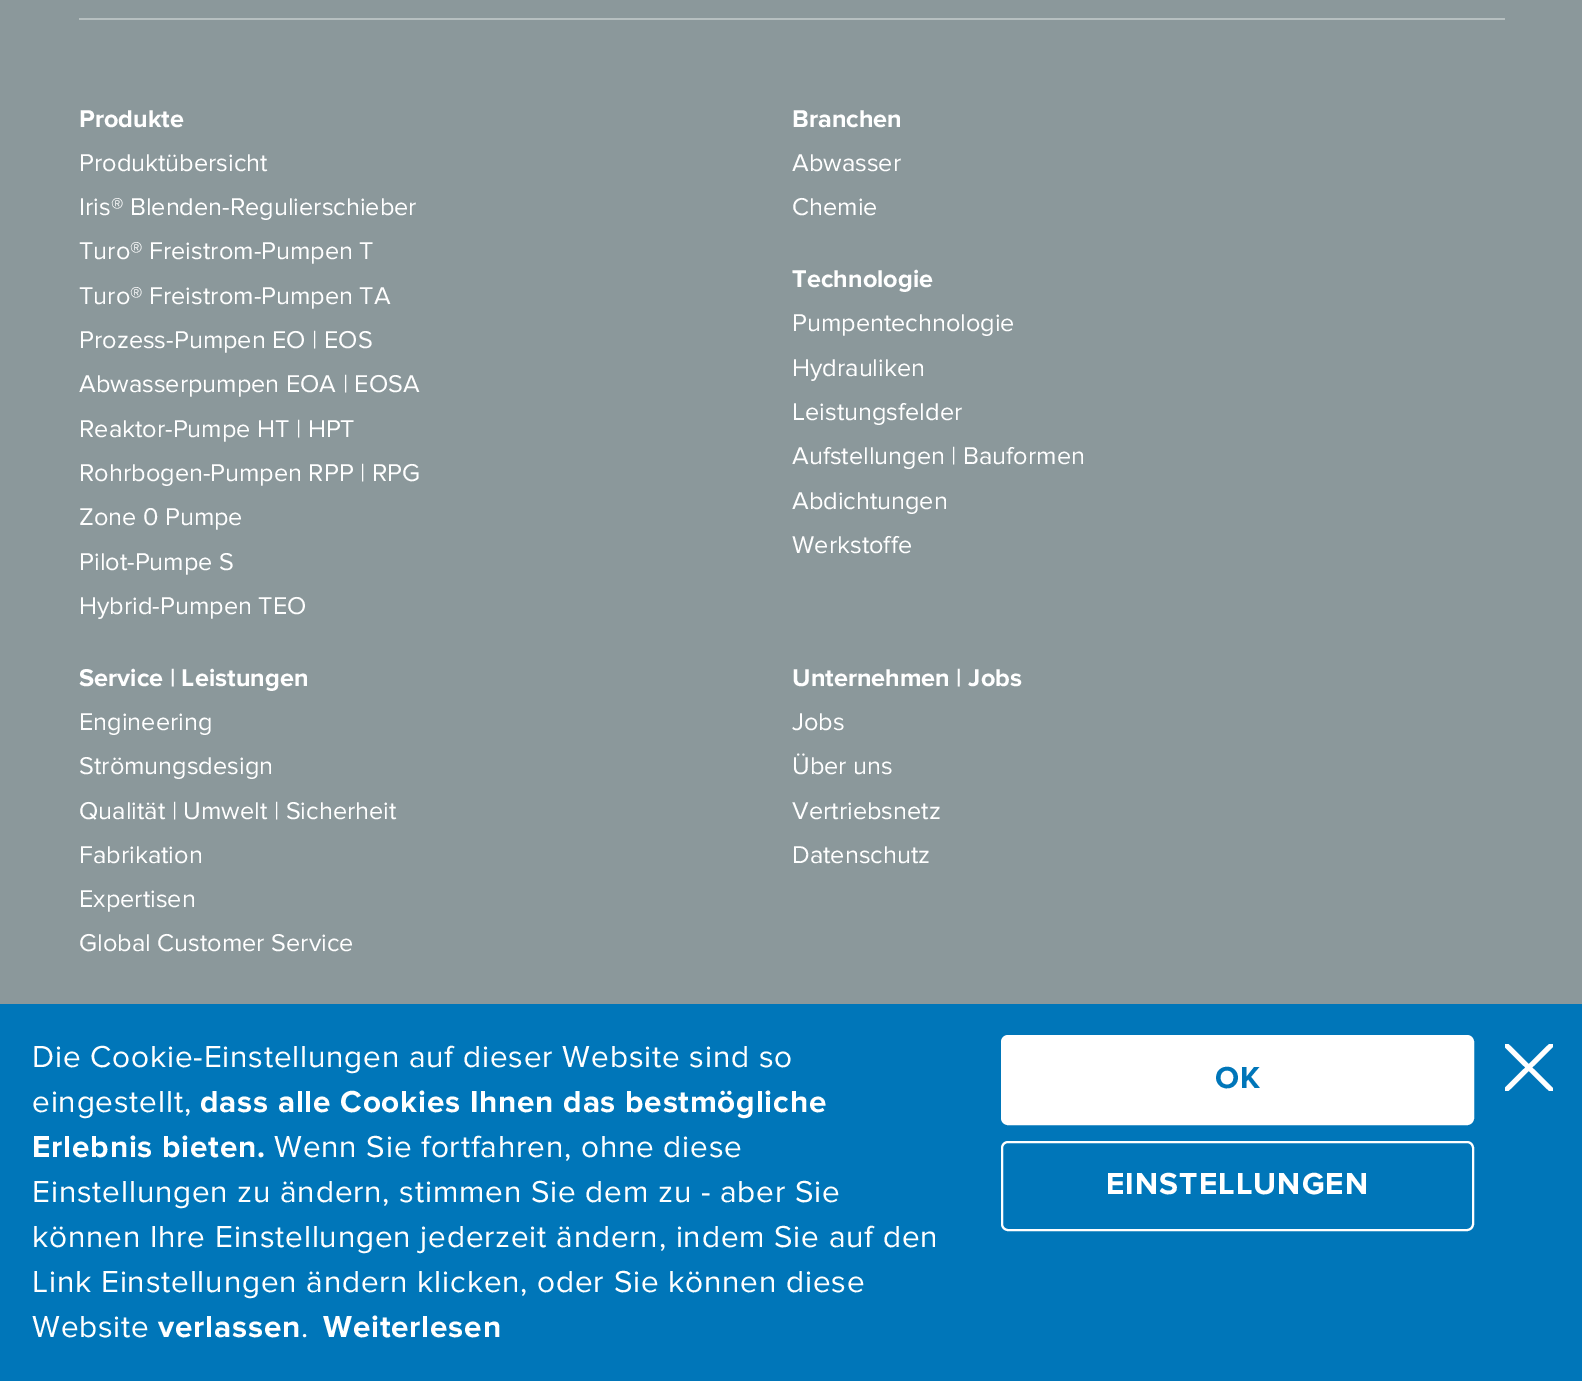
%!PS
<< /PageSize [1582 1381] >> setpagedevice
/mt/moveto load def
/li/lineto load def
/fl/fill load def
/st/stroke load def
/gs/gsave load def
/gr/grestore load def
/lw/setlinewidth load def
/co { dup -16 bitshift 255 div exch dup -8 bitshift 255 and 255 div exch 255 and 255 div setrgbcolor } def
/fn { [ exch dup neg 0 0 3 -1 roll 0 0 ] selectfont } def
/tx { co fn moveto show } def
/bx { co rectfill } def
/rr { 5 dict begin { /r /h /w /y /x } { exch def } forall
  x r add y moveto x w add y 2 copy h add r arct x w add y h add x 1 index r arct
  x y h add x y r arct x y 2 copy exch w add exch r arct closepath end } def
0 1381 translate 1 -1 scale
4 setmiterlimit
0 0 1582 1381 16#8B989B bx
79 18 1426 2 16#B6BFC0 bx
0 1004 1582 377 16#0076B9 bx
16#FFFFFF co
1002 1036 471 88 6 rr gs fl gr
2 lw
st
1002 1142 471 88 6 rr st
gs
1505 1044 48 47 rectclip
4.9 lw
1 setlinecap
1 setlinejoin
1505 1044 mt 1552.5 1091 li 1552.5 1044 mt 1505 1091 li st
gr
(Produkte) 79 127 /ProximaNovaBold-Bold 25.25 16#FFFFFF tx
(Produktübersicht) 79 171 /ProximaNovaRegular-Regular 25.25 16#FFFFFF tx
(Iris® Blenden-Regulierschieber) 79 215 /ProximaNovaRegular-Regular 25.25 16#FFFFFF tx
(Turo® Freistrom-Pumpen T) 79 259 /ProximaNovaRegular-Regular 25.25 16#FFFFFF tx
(Turo® Freistrom-Pumpen TA) 79 304 /ProximaNovaRegular-Regular 25.25 16#FFFFFF tx
(Prozess-Pumpen EO | EOS) 79 348 /ProximaNovaRegular-Regular 25.25 16#FFFFFF tx
(Abwasserpumpen EOA | EOSA) 79 392 /ProximaNovaRegular-Regular 25.25 16#FFFFFF tx
(Reaktor-Pumpe HT | HPT) 79 437 /ProximaNovaRegular-Regular 25.25 16#FFFFFF tx
(Rohrbogen-Pumpen RPP | RPG) 79 481 /ProximaNovaRegular-Regular 25.25 16#FFFFFF tx
(Zone 0 Pumpe) 79 525 /ProximaNovaRegular-Regular 25.25 16#FFFFFF tx
(Pilot-Pumpe S) 79 570 /ProximaNovaRegular-Regular 25.25 16#FFFFFF tx
(Hybrid-Pumpen TEO) 79 614 /ProximaNovaRegular-Regular 25.25 16#FFFFFF tx
(Branchen) 792 127 /ProximaNovaBold-Bold 25.25 16#FFFFFF tx
(Abwasser) 792 171 /ProximaNovaRegular-Regular 25.25 16#FFFFFF tx
(Chemie) 792 215 /ProximaNovaRegular-Regular 25.25 16#FFFFFF tx
(Technologie) 792 287 /ProximaNovaBold-Bold 25.25 16#FFFFFF tx
(Pumpentechnologie) 792 331 /ProximaNovaRegular-Regular 25.25 16#FFFFFF tx
(Hydrauliken) 792 376 /ProximaNovaRegular-Regular 25.25 16#FFFFFF tx
(Leistungsfelder) 792 420 /ProximaNovaRegular-Regular 25.25 16#FFFFFF tx
(Aufstellungen | Bauformen) 792 464 /ProximaNovaRegular-Regular 25.25 16#FFFFFF tx
(Abdichtungen) 792 509 /ProximaNovaRegular-Regular 25.25 16#FFFFFF tx
(Werkstoffe) 792 553 /ProximaNovaRegular-Regular 25.25 16#FFFFFF tx
(Service | Leistungen) 79 686 /ProximaNovaBold-Bold 25.25 16#FFFFFF tx
(Engineering) 79 730 /ProximaNovaRegular-Regular 25.25 16#FFFFFF tx
(Strömungsdesign) 79 774 /ProximaNovaRegular-Regular 25.25 16#FFFFFF tx
(Qualität | Umwelt | Sicherheit) 79 819 /ProximaNovaRegular-Regular 25.25 16#FFFFFF tx
(Fabrikation) 79 863 /ProximaNovaRegular-Regular 25.25 16#FFFFFF tx
(Expertisen) 79 907 /ProximaNovaRegular-Regular 25.25 16#FFFFFF tx
(Global Customer Service) 79 951 /ProximaNovaRegular-Regular 25.25 16#FFFFFF tx
(Unternehmen | Jobs) 792 686 /ProximaNovaBold-Bold 25.25 16#FFFFFF tx
(Jobs) 792 730 /ProximaNovaRegular-Regular 25.25 16#FFFFFF tx
(Über uns) 792 774 /ProximaNovaRegular-Regular 25.25 16#FFFFFF tx
(Vertriebsnetz) 792 819 /ProximaNovaRegular-Regular 25.25 16#FFFFFF tx
(Datenschutz) 792 863 /ProximaNovaRegular-Regular 25.25 16#FFFFFF tx
/ProximaNovaRegular-Regular 31.5 fn
32 1067 mt .8 0 (Die Cookie-Einstellungen auf dieser Website sind so) ashow
32 1112 mt .8 0 (eingestellt,) ashow
/ProximaNovaBold-Bold 31.5 fn
200 1112 mt .8 0 (dass alle Cookies Ihnen das bestmögliche) ashow
32 1157 mt .8 0 (Erlebnis bieten.) ashow
/ProximaNovaRegular-Regular 31.5 fn
274 1157 mt .8 0 (Wenn Sie fortfahren, ohne diese) ashow
32 1202 mt .8 0 (Einstellungen zu ändern, stimmen Sie dem zu - aber Sie) ashow
32 1247 mt .8 0 (können Ihre Einstellungen jederzeit ändern, indem Sie auf den) ashow
32 1292 mt .8 0 (Link Einstellungen ändern klicken, oder Sie können diese) ashow
32 1337 mt .8 0 (Website) ashow
/ProximaNovaBold-Bold 31.5 fn
158 1337 mt .8 0 (verlassen) ashow
/ProximaNovaRegular-Regular 31.5 fn
301 1337 mt .8 0 (.) ashow
/ProximaNovaBold-Bold 31.5 fn
323 1337 mt .8 0 (Weiterlesen) ashow
16#0076B9 co
1215 1088 mt 1.1 0 (OK) ashow
16#FFFFFF co
1106 1194 mt 1.1 0 (EINSTELLUNGEN) ashow
showpage
